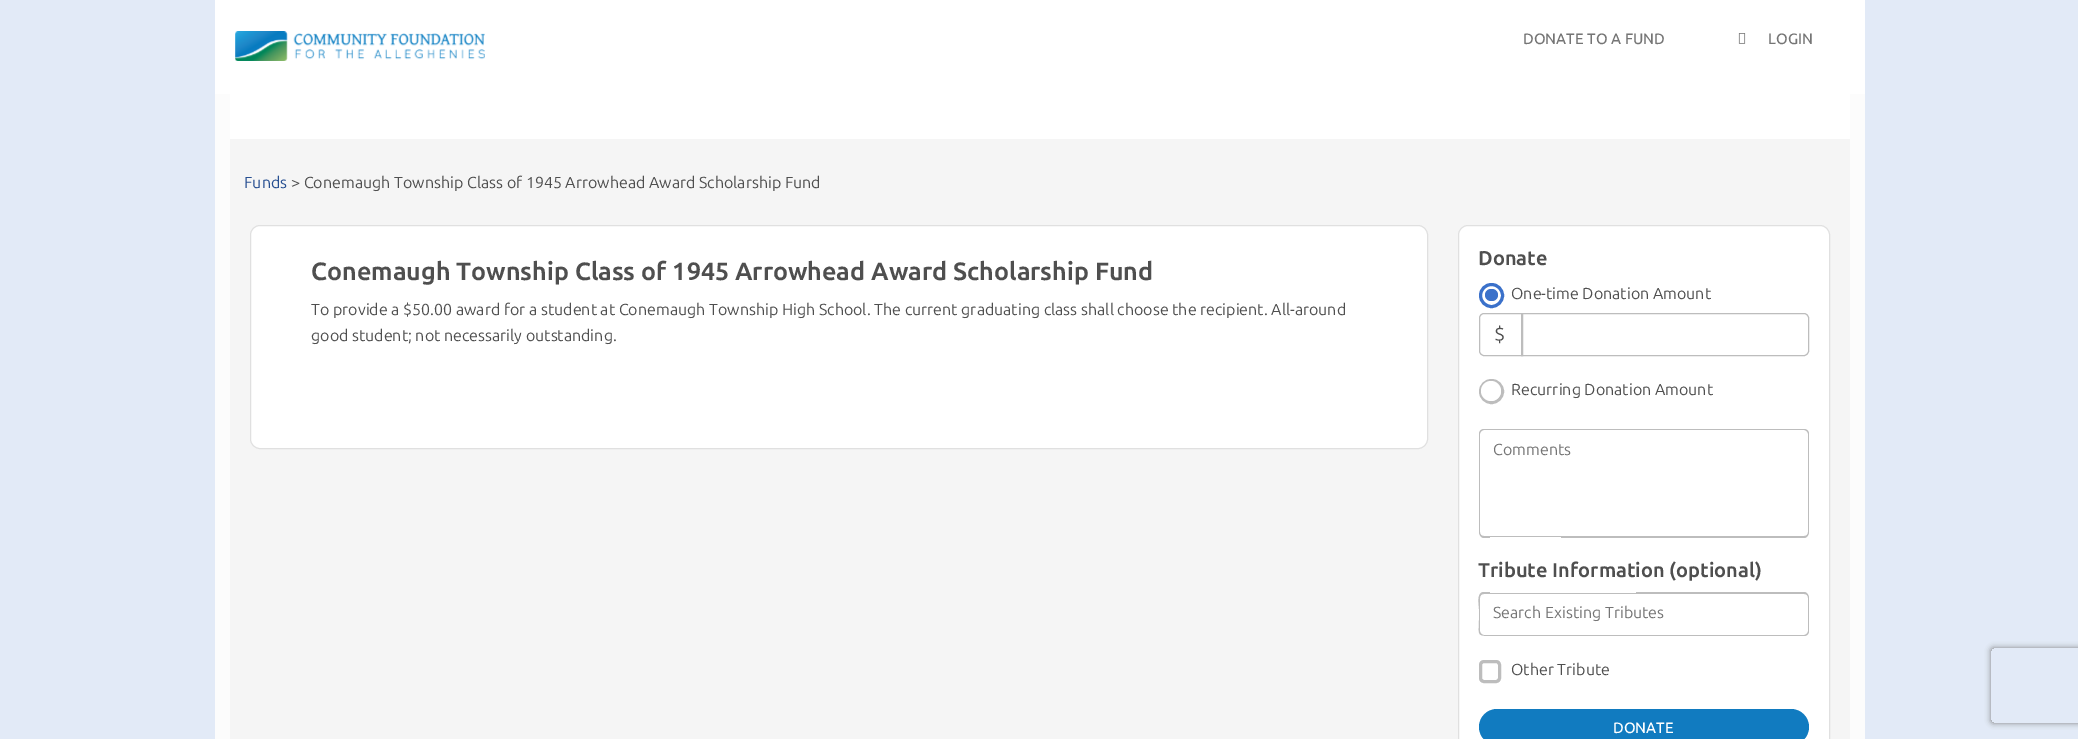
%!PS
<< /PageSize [2078 739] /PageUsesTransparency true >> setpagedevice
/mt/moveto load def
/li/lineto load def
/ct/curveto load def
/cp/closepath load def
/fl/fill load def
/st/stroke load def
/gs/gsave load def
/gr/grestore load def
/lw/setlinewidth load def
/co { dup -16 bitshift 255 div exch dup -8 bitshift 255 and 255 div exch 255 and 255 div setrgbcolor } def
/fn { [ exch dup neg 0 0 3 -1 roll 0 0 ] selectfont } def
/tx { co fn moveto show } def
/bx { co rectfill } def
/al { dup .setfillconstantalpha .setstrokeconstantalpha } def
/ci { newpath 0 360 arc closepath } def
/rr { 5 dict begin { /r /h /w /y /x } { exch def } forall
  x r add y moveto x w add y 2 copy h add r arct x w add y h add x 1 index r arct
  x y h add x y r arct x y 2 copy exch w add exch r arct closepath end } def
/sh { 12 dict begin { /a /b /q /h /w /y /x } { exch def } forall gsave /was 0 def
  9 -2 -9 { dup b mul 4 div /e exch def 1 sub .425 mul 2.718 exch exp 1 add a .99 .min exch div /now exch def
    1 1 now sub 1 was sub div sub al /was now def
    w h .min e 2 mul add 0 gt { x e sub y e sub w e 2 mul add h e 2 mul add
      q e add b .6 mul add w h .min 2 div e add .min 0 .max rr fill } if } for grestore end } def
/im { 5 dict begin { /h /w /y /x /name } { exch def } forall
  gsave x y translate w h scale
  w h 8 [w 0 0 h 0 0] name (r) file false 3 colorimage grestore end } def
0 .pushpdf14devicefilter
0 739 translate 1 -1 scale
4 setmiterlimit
0 0 2078 739 16#E2EAF7 bx
215 94 1650 645 16#FCFCFC bx
215 0 1650 94 16#FFFFFF bx
(media/1.raw) 235 31 250 30 im
(media/2.raw) 1738 33 8 11 im
230 94 1620 45 16#FFFFFF bx
230 139 1620 600 16#F5F5F5 bx
16#FFFFFF co
250.5 225.5 1177 223 9.5 rr gs fl gr
16#E0E0E0 co
st
16#FFFFFF co
1458.5 225.5 371 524 9.5 rr gs fl gr
16#E0E0E0 co
st
16#3B71CA co
3 lw
1491.5 295.5 11 ci st
1485 289 13 12 6 rr fl
16#BDBDBD co
1 lw
1484 313.5 mt 1522.5 313.5 li 1522.5 355.5 li 1484 355.5 li 1481.5 355.5 1479.5 353.5 1479.5 351 ct 1479.5 318 li 1479.5 315.5 1481.5 313.5 1484 313.5 ct cp st
1521.5 313.5 mt 1804 313.5 li 1806.5 313.5 1808.5 315.5 1808.5 318 ct 1808.5 351 li 1808.5 353.5 1806.5 355.5 1804 355.5 ct 1521.5 355.5 li cp st
3 lw
1491.5 391.5 11 ci st
16#FFFFFF co
1491 391 10 ci fl
16#BDBDBD co
1484 429 mt 1490 429 li 1490 538 li 1484 538 li 1481 538 1479 535 1479 532 ct 1479 434 li 1479 431 1481 429 1484 429 ct cp 1484 430 mt 1490 430 li 1490 536 li 1484 536 li 1482 536 1480 535 1480 532 ct 1480 434 li 1480 432 1482 430 1484 430 ct cp eofill
1490 429 71 1 16#BDBDBD bx
1490 536 71 1 16#BDBDBD bx
1484 592 mt 1490 592 li 1490 636 li 1476 636 1479 634 1479 620 ct 1479 609 li 1479 605 1476 592 1484 592 ct cp 1484 594 mt 1490 594 li 1490 635 li 1484 635 li 1482 635 1480 633 1480 631 ct 1480 598 li 1480 595 1482 594 1484 594 ct cp eofill
1490 593 146 1 16#BDBDBD bx
1490 635 146 1 16#BDBDBD bx
1480.5 661.5 19 20 3.5 rr st
16#117BC0 co
1479 709 330 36 18 rr fl
gs
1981 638 mt 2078 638 li 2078 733 li 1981 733 li cp 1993.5 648 mt 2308.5 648 li 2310 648 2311 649 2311 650.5 ct 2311 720.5 li 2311 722 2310 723 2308.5 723 ct 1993.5 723 li 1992 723 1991 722 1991 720.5 ct 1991 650.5 li 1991 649 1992 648 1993.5 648 ct cp eoclip newpath
16#808080 co
1991 648 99 75 2.5 3 1 sh
gr
(DONATE TO A FUND) 1523 44 /Ubuntu-Medium 15 16#757575 tx
(LOGIN) 1768 44 /Ubuntu-Medium 15 16#757575 tx
(Funds) 244 188 /Ubuntu-Regular 16 16#274F91 tx
(> Conemaugh Township Class of 1945 Arrowhead Award Scholarship Fund) 291 188 /Ubuntu-Regular 16 16#4F4F4F tx
(Conemaugh Township Class of 1945 Arrowhead Award Scholarship Fund) 311 280 /Ubuntu-Bold 25 16#4F4F4F tx
(To provide a $50.00 award for a student at Conemaugh Township High School. The current graduating class shall choose the recipient. All-around) 311 315 /Ubuntu-Regular 16 16#4F4F4F tx
(good student; not necessarily outstanding.) 311 341 /Ubuntu-Regular 16 16#4F4F4F tx
(Donate) 1478 265 /Ubuntu-Bold 20 16#4F4F4F tx
(One-time Donation Amount) 1511 299 /Ubuntu-Regular 16 16#4F4F4F tx
($) 1494 341 /Ubuntu-Regular 20 16#4F4F4F tx
(Recurring Donation Amount) 1511 395 /Ubuntu-Regular 16 16#4F4F4F tx
(Comments) 1493 455 /Ubuntu-Regular 16 16#757575 tx
16#BDBDBD co
1561 429 mt 1804 429 li 1807 429 1809 431 1809 434 ct 1809 532 li 1809 535 1807 538 1804 538 ct 1561 538 li cp 1561 430 mt 1804 430 li 1806 430 1808 432 1808 434 ct 1808 532 li 1808 535 1806 536 1804 536 ct 1561 536 li cp eofill
(Tribute Information \(optional\)) 1478 577 /Ubuntu-Bold 20 16#4F4F4F tx
(Search Existing Tributes) 1493 618 /Ubuntu-Regular 16 16#757575 tx
16#BDBDBD co
1636 592 mt 1804 592 li 1807 592 1809 595 1809 598 ct 1809 631 li 1809 634 1807 636 1804 636 ct 1636 636 li cp 1636 594 mt 1804 594 li 1806 594 1808 595 1808 598 ct 1808 631 li 1808 633 1806 635 1804 635 ct 1636 635 li cp eofill
(Other Tribute) 1511 675 /Ubuntu-Regular 16 16#4F4F4F tx
(DONATE) 1613 733 /Ubuntu-Medium 15 16#FFFFFF tx
.poppdf14devicefilter showpage
